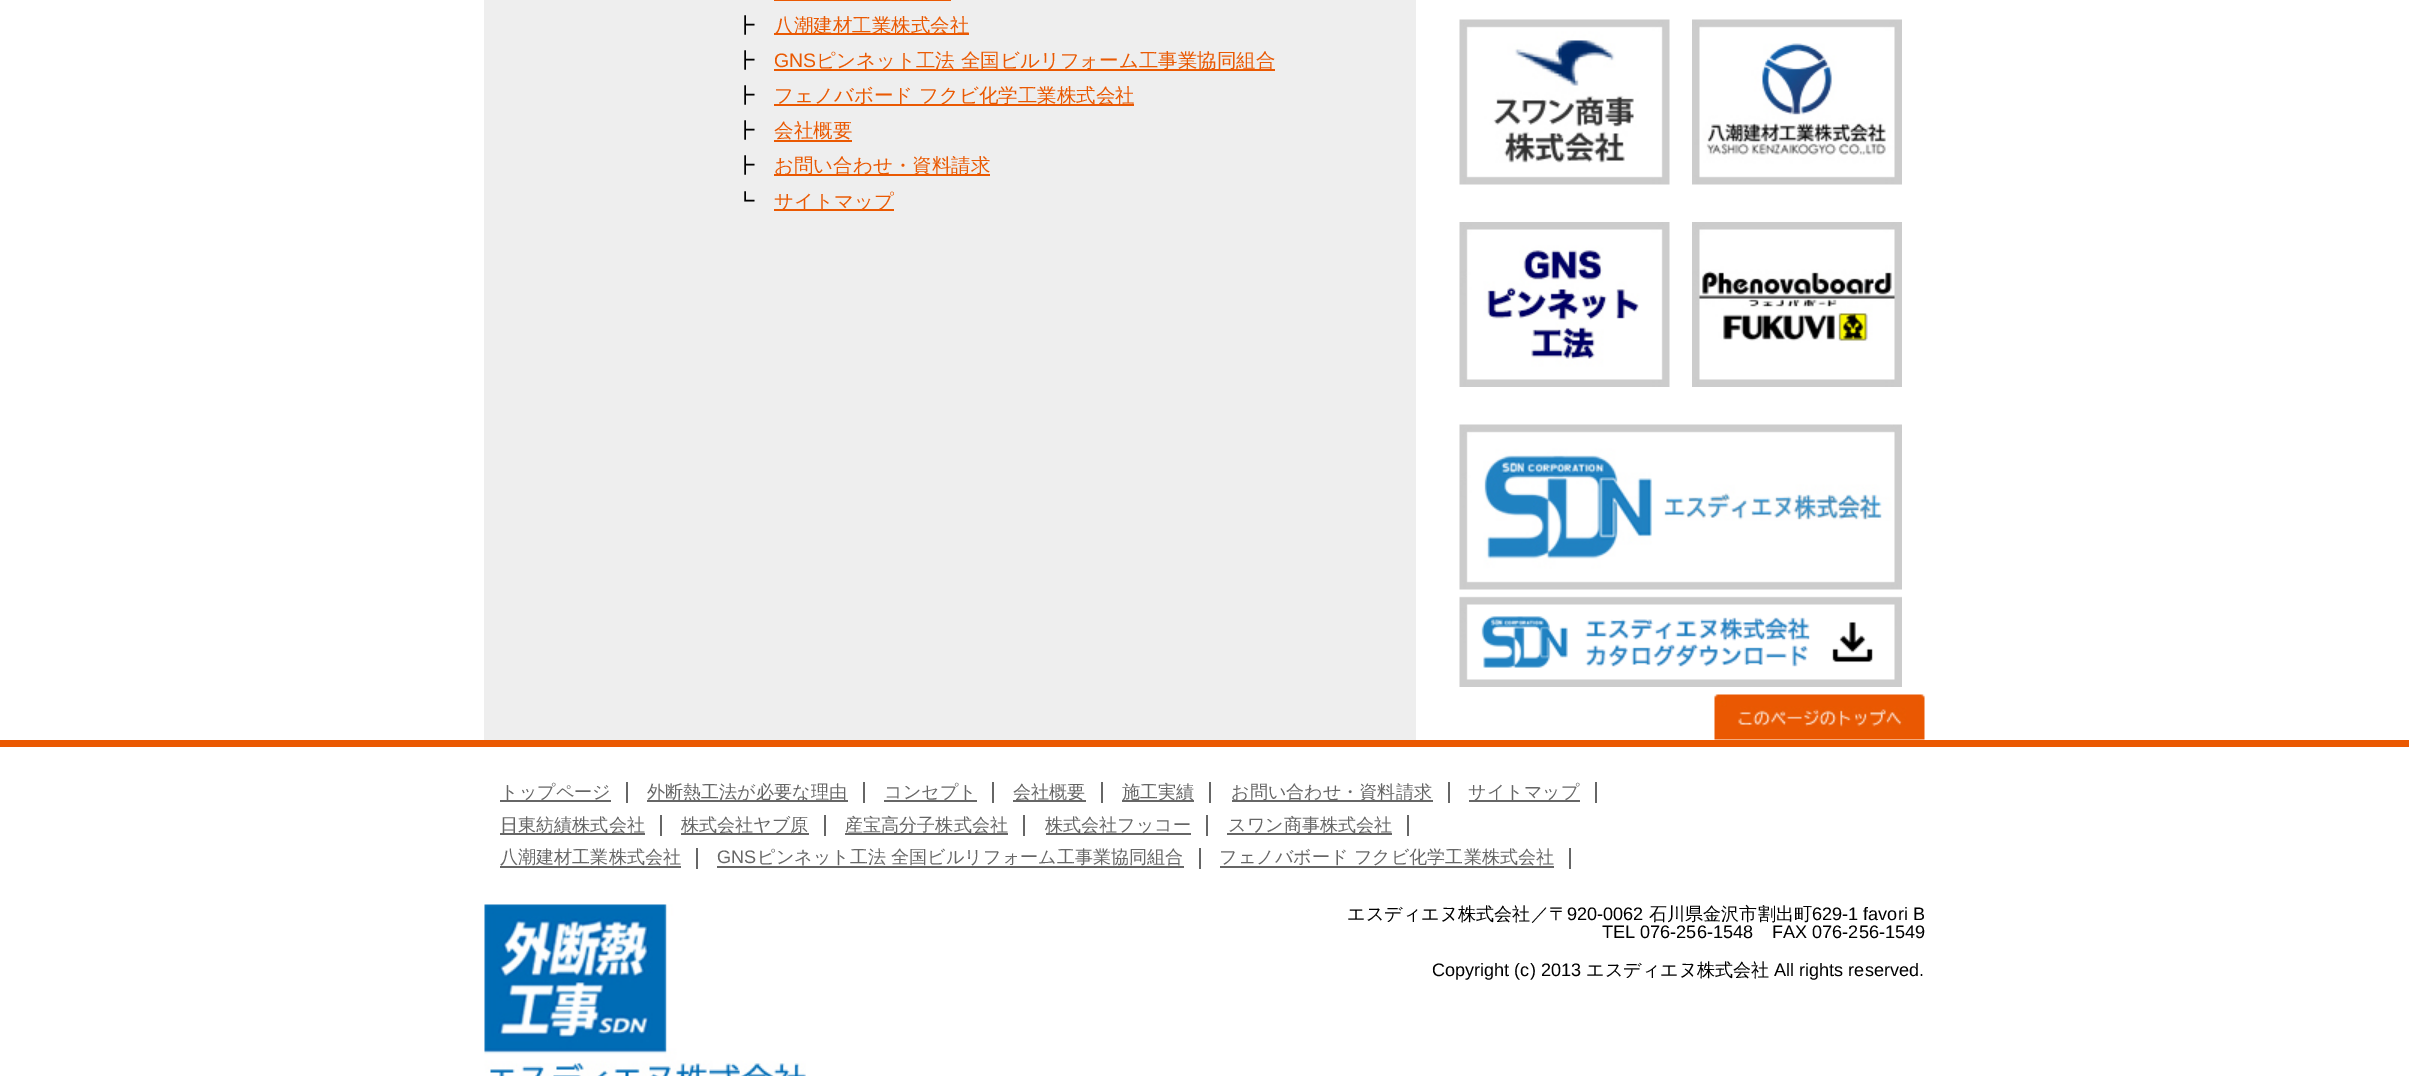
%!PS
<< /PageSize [2409 1076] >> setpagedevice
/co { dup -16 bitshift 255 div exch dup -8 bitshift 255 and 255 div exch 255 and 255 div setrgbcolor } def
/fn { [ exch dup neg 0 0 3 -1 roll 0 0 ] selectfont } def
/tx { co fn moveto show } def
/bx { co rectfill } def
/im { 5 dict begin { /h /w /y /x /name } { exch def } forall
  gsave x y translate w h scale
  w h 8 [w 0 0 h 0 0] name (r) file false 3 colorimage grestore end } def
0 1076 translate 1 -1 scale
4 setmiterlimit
0 0 2409 1076 16#FFFFFF bx
484 0 932 740 16#EEEEEE bx
774 0 177 1 16#EA5902 bx
774 33 195 2 16#EA5902 bx
774 69 501 2 16#EA5902 bx
774 104 360 2 16#EA5902 bx
774 140 78 2 16#EA5902 bx
774 174 216 2 16#EA5902 bx
774 209 120 2 16#EA5902 bx
(media/1.raw) 1459 19 211 166 im
(media/2.raw) 1692 19 210 166 im
(media/3.raw) 1459 222 211 165 im
(media/4.raw) 1692 222 210 165 im
(media/5.raw) 1459 424 443 166 im
(media/6.raw) 1459 596 443 91 im
(media/7.raw) 1714 694 211 46 im
0 740 2409 7 16#EA5902 bx
626 782 2 21 16#666666 bx
500 800 111 2 16#666666 bx
863 782 2 21 16#666666 bx
647 800 201 2 16#666666 bx
992 782 2 21 16#666666 bx
884 800 93 2 16#666666 bx
1101 782 2 21 16#666666 bx
1013 800 73 2 16#666666 bx
1209 782 2 21 16#666666 bx
1122 800 72 2 16#666666 bx
1448 782 2 21 16#666666 bx
1232 800 201 2 16#666666 bx
1595 782 2 21 16#666666 bx
1469 800 111 2 16#666666 bx
660 815 2 21 16#666666 bx
500 833 145 2 16#666666 bx
824 815 2 21 16#666666 bx
681 833 128 2 16#666666 bx
1023 815 2 21 16#666666 bx
845 833 163 2 16#666666 bx
1206 815 2 21 16#666666 bx
1046 833 145 2 16#666666 bx
1407 815 2 21 16#666666 bx
1227 833 165 2 16#666666 bx
696 848 2 21 16#666666 bx
500 866 181 2 16#666666 bx
717 866 467 2 16#666666 bx
1199 848 2 21 16#666666 bx
1569 848 2 21 16#666666 bx
1220 866 334 2 16#666666 bx
(media/8.raw) 484 904 322 172 im
(┣) 735 32 /WenQuanYiZenHei-Medium 19.5 16#000000 tx
(八潮建材工業株式会社) 774 32 /WenQuanYiZenHei-Medium 19.5 16#EA5902 tx
(┣) 735 67 /WenQuanYiZenHei-Medium 19.5 16#000000 tx
(GNS) 774 67 /LiberationSans-Regular 19.5 16#EA5902 tx
(ピンネット工法 全国ビルリフォーム工事業協同組合) 816 67 /WenQuanYiZenHei-Medium 19.5 16#EA5902 tx
(┣) 735 102 /WenQuanYiZenHei-Medium 19.5 16#000000 tx
(フェノバボード フクビ化学工業株式会社) 774 102 /WenQuanYiZenHei-Medium 19.5 16#EA5902 tx
(┣) 735 137 /WenQuanYiZenHei-Medium 19.5 16#000000 tx
(会社概要) 774 137 /WenQuanYiZenHei-Medium 19.5 16#EA5902 tx
(┣) 735 172 /WenQuanYiZenHei-Medium 19.5 16#000000 tx
(お問い合わせ・資料請求) 774 172 /WenQuanYiZenHei-Medium 19.5 16#EA5902 tx
(┗) 735 208 /WenQuanYiZenHei-Medium 19.5 16#000000 tx
(サイトマップ) 774 208 /WenQuanYiZenHei-Medium 19.5 16#EA5902 tx
(トップページ) 500 798 /WenQuanYiZenHei-Medium 18.1 16#666666 tx
(外断熱工法が必要な理由) 647 798 /WenQuanYiZenHei-Medium 18.1 16#666666 tx
(コンセプト) 884 798 /WenQuanYiZenHei-Medium 18.1 16#666666 tx
(会社概要) 1013 798 /WenQuanYiZenHei-Medium 18.1 16#666666 tx
(施工実績) 1122 798 /WenQuanYiZenHei-Medium 18.1 16#666666 tx
(お問い合わせ・資料請求) 1231 798 /WenQuanYiZenHei-Medium 18.1 16#666666 tx
(サイトマップ) 1468 798 /WenQuanYiZenHei-Medium 18.1 16#666666 tx
(日東紡績株式会社) 500 831 /WenQuanYiZenHei-Medium 18.1 16#666666 tx
(株式会社ヤブ原) 681 831 /WenQuanYiZenHei-Medium 18.1 16#666666 tx
(産宝高分子株式会社) 845 831 /WenQuanYiZenHei-Medium 18.1 16#666666 tx
(株式会社フッコー) 1045 831 /WenQuanYiZenHei-Medium 18.1 16#666666 tx
(スワン商事株式会社) 1228 831 /WenQuanYiZenHei-Medium 18.1 16#666666 tx
(八潮建材工業株式会社) 500 863 /WenQuanYiZenHei-Medium 18.1 16#666666 tx
(GNS) 717 863 /LiberationSans-Regular 18.1 16#666666 tx
(ピンネット工法 全国ビルリフォーム工事業協同組合) 757 863 /WenQuanYiZenHei-Medium 18.1 16#666666 tx
(フェノバボード フクビ化学工業株式会社) 1219 863 /WenQuanYiZenHei-Medium 18.1 16#666666 tx
(エスディエヌ株式会社／〒) 1347 920 /WenQuanYiZenHei-Medium 18.1 16#000000 tx
(920-0062) 1567 920 /LiberationSans-Regular 18.1 16#000000 tx
(石川県金沢市割出町) 1649 920 /WenQuanYiZenHei-Medium 18.1 16#000000 tx
(629-1 favori B) 1812 920 /LiberationSans-Regular 18.1 16#000000 tx
(TEL 076-256-1548) 1602 938 /LiberationSans-Regular 18.1 16#000000 tx
(FAX 076-256-1549) 1772 938 /LiberationSans-Regular 18.1 16#000000 tx
(Copyright \(c\) 2013) 1432 976 /LiberationSans-Regular 18.1 16#000000 tx
(エスディエヌ株式会社) 1586 976 /WenQuanYiZenHei-Medium 18.1 16#000000 tx
(All rights reserved.) 1774 976 /LiberationSans-Regular 18.1 16#000000 tx
showpage
